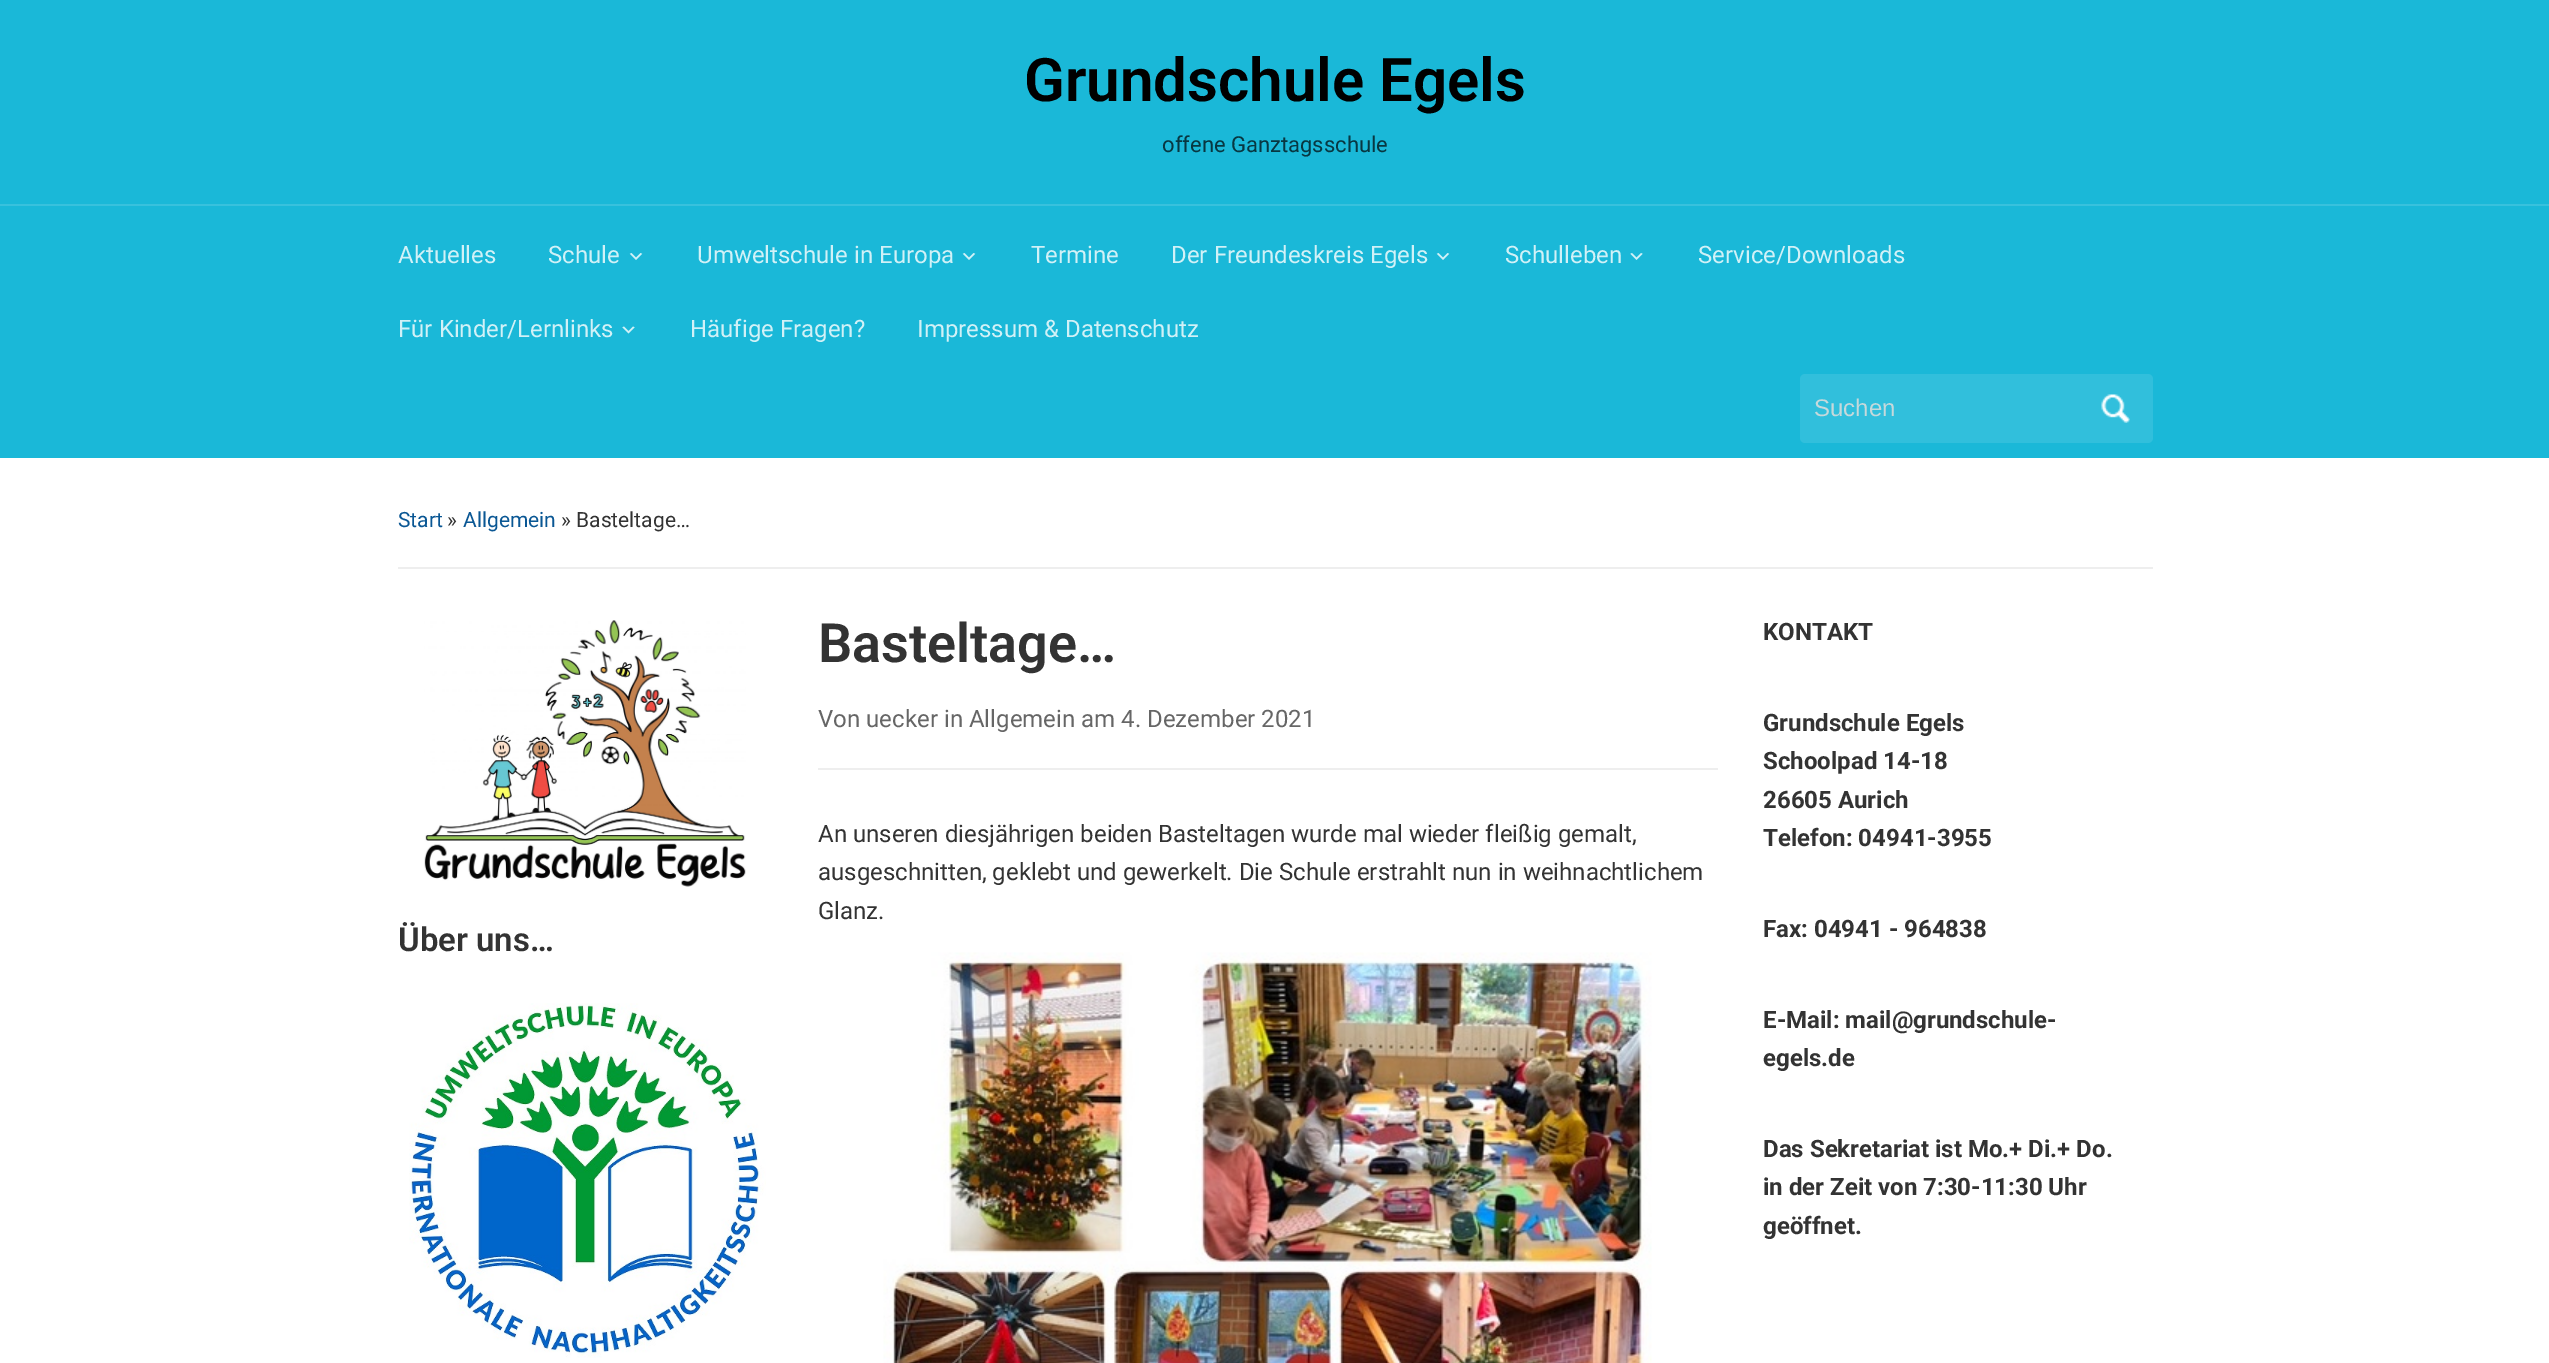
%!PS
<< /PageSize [2549 1363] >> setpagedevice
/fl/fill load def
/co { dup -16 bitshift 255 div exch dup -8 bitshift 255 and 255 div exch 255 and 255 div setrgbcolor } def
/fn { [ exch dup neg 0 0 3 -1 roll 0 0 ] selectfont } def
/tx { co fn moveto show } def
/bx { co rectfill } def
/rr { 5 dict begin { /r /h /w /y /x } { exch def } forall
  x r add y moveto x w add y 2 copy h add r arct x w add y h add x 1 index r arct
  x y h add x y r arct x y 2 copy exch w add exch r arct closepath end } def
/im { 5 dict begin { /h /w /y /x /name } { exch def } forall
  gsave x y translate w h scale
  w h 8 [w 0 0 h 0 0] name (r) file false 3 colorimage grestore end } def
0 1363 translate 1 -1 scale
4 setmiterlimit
0 0 2549 1363 16#FFFFFF bx
0 0 2549 458 16#1AB8D8 bx
0 204 2549 2 16#38C1DD bx
(media/1.raw) 629 253 14 7 im
(media/1.raw) 962 253 14 7 im
(media/1.raw) 1436 253 14 7 im
(media/2.raw) 1630 253 13 7 im
(media/3.raw) 622 326 13 8 im
16#31BFDC co
1800 374 353 69 5 rr fl
(media/4.raw) 2101 394 29 29 im
398 567 1755 2 16#EEEEEE bx
(media/5.raw) 424 620 322 267 im
(media/6.raw) 409 1003 357 355 im
818 768 900 2 16#EEEEEE bx
(media/7.raw) 883 952 769 411 im
(Grundschule Egels) 1024 101 /Roboto-SemiBold 60 16#000000 tx
(offene Ganztagsschule) 1162 152 /Roboto-Regular 22 16#083741 tx
(Aktuelles) 398 263 /Roboto-Regular 24 16#D1F1F7 tx
(Schule) 548 263 /Roboto-Regular 24 16#D1F1F7 tx
(Umweltschule in Europa) 697 263 /Roboto-Regular 24 16#D1F1F7 tx
(Termine) 1031 263 /Roboto-Regular 24 16#D1F1F7 tx
(Der Freundeskreis Egels) 1171 263 /Roboto-Regular 24 16#D1F1F7 tx
(Schulleben) 1505 263 /Roboto-Regular 24 16#D1F1F7 tx
(Service/Downloads) 1698 263 /Roboto-Regular 24 16#D1F1F7 tx
(Für Kinder/Lernlinks) 398 337 /Roboto-Regular 24 16#D1F1F7 tx
(Häufige Fragen?) 690 337 /Roboto-Regular 24 16#D1F1F7 tx
(Impressum & Datenschutz) 917 337 /Roboto-Regular 24 16#D1F1F7 tx
(Suchen) 1814 416 /LiberationSans-Regular 24 16#C6D9DB tx
(Start) 398 527 /Roboto-Regular 21 16#0A5794 tx
(») 447 527 /Roboto-Regular 21 16#333333 tx
(Allgemein) 463 527 /Roboto-Regular 21 16#0A5794 tx
(» Basteltage…) 561 527 /Roboto-Regular 21 16#333333 tx
(Über uns…) 398 951 /Roboto-SemiBold 33 16#333333 tx
(Basteltage…) 818 662 /Roboto-SemiBold 54 16#333333 tx
(Von uecker in Allgemein am 4. Dezember 2021) 818 727 /Roboto-Regular 24 16#666666 tx
(An unseren diesjährigen beiden Basteltagen wurde mal wieder fleißig gemalt,) 818 842 /Roboto-Regular 24 16#333333 tx
(ausgeschnitten, geklebt und gewerkelt. Die Schule erstrahlt nun in weihnachtlichem) 818 880 /Roboto-Regular 24 16#333333 tx
(Glanz.) 818 919 /Roboto-Regular 24 16#333333 tx
(KONTAKT) 1763 640 /Roboto-Bold 24 16#333333 tx
(Grundschule Egels) 1763 731 /Roboto-Bold 24 16#333333 tx
(Schoolpad 14-18) 1763 769 /Roboto-Bold 24 16#333333 tx
(26605 Aurich) 1763 808 /Roboto-Bold 24 16#333333 tx
(Telefon: 04941-3955) 1763 846 /Roboto-Bold 24 16#333333 tx
(Fax: 04941 - 964838) 1763 937 /Roboto-Bold 24 16#333333 tx
(E-Mail: mail@grundschule-) 1763 1028 /Roboto-Bold 24 16#333333 tx
(egels.de) 1763 1066 /Roboto-Bold 24 16#333333 tx
(Das Sekretariat ist Mo.+ Di.+ Do.) 1763 1157 /Roboto-Bold 24 16#333333 tx
(in der Zeit von 7:30-11:30 Uhr) 1763 1195 /Roboto-Bold 24 16#333333 tx
(geöffnet.) 1763 1234 /Roboto-Bold 24 16#333333 tx
showpage
